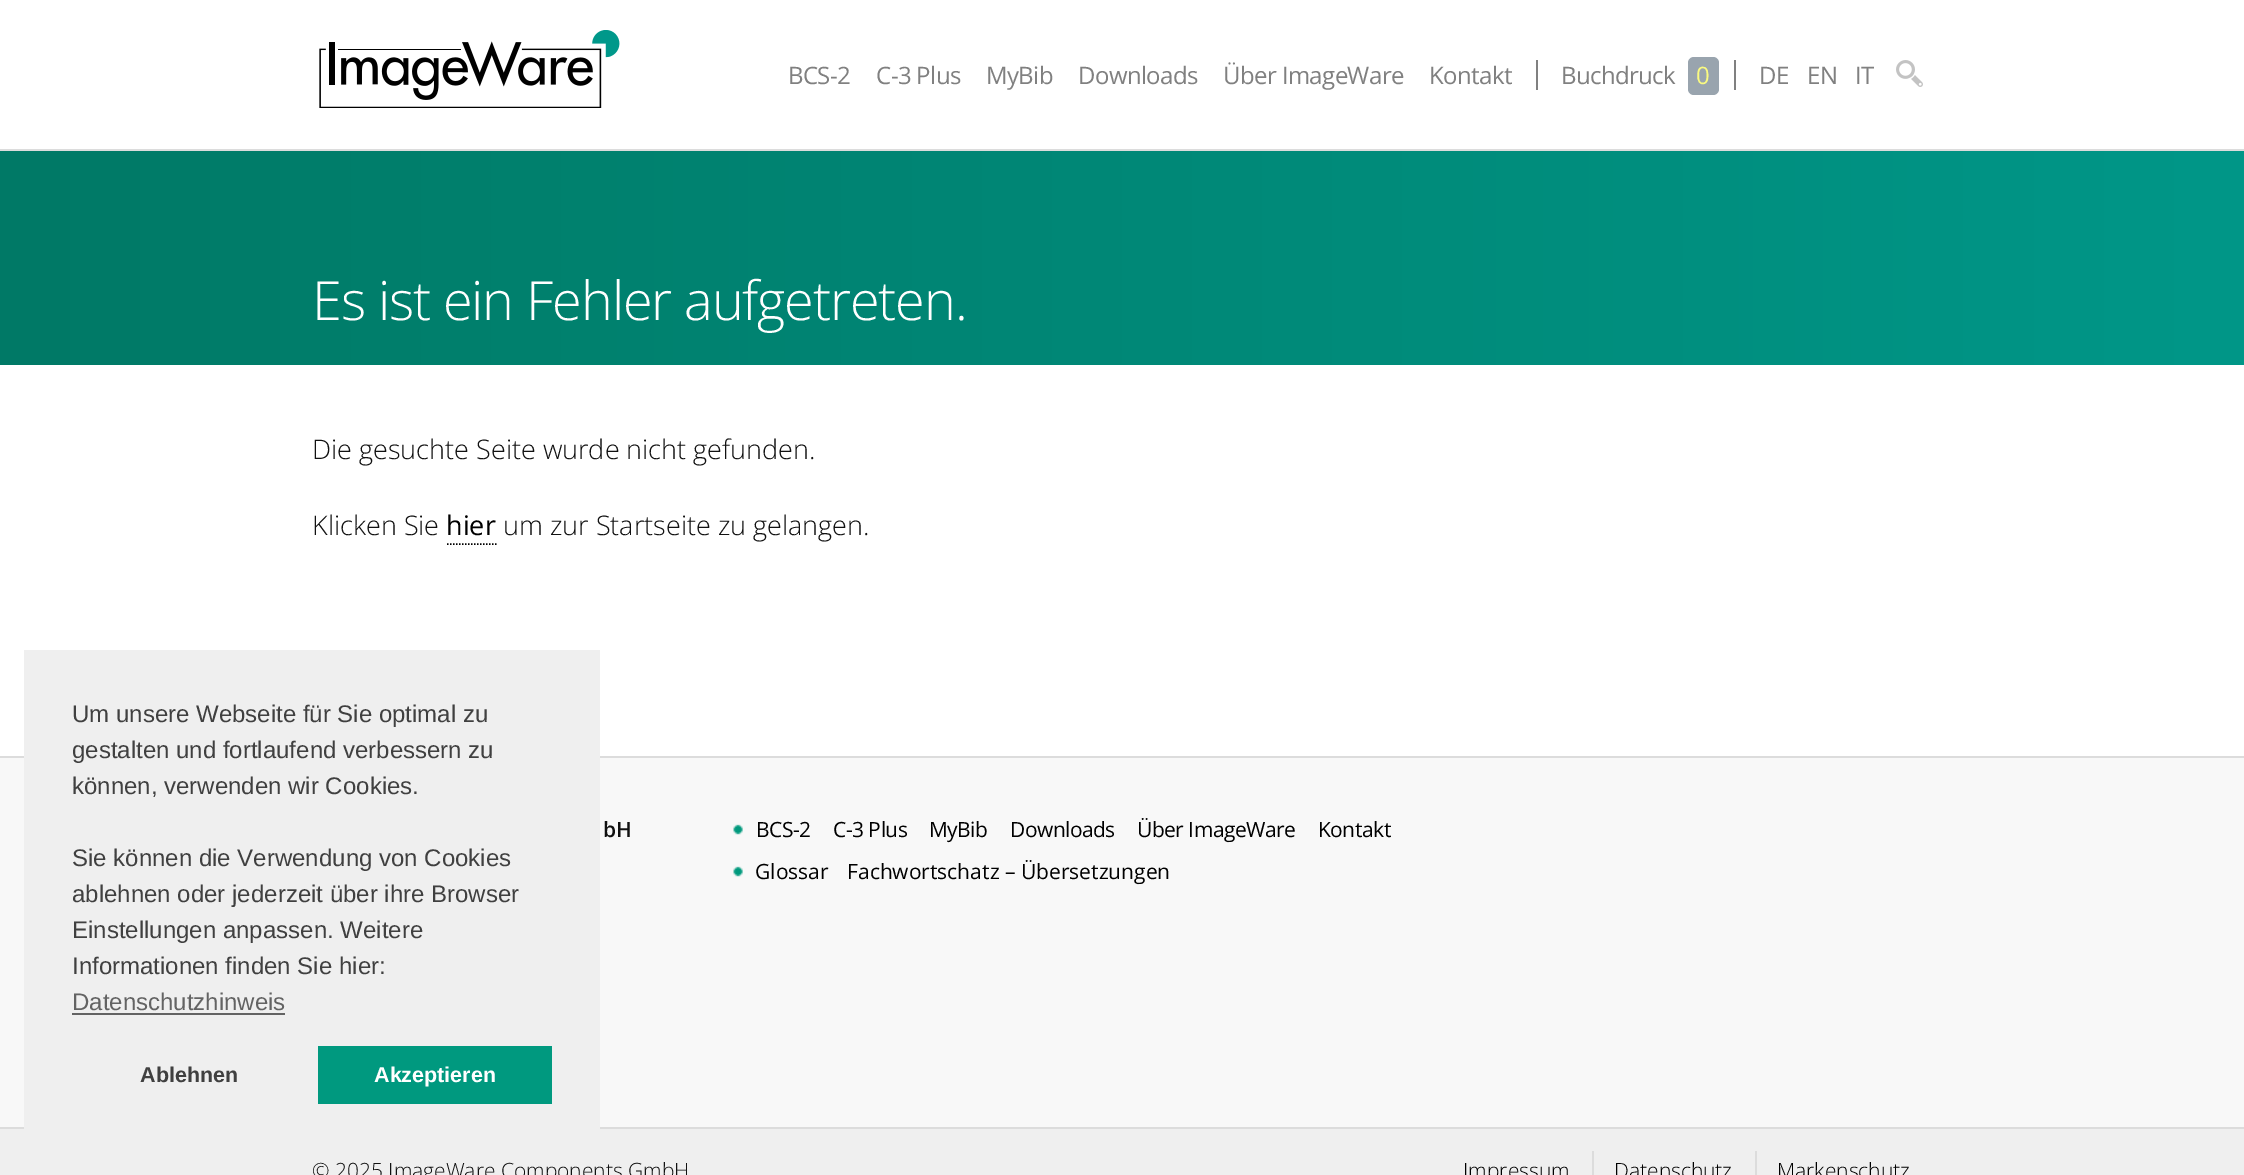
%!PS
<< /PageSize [2244 1175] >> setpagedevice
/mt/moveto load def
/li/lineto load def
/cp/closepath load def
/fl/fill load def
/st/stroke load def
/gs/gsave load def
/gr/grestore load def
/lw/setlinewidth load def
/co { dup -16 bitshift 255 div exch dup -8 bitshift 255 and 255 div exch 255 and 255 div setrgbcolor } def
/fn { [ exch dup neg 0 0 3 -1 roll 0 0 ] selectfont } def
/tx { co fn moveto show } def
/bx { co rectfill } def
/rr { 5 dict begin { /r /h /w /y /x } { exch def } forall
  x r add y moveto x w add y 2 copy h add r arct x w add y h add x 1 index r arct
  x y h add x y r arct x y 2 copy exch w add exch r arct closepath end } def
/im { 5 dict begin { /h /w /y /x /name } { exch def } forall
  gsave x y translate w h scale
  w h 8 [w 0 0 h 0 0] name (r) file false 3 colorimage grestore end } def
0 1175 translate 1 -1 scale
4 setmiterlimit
0 0 2244 1175 16#FFFFFF bx
0 758 2244 369 16#F8F8F8 bx
0 756 2244 2 16#DCDCDC bx
0 1127 2244 2 16#DCDCDC bx
24 650 576 479 16#EFEFEF bx
72 1013 213 2 16#636363 bx
318 1046 234 58 16#00997F bx
gs 0 151 mt 2244 151 li 2244 365 li 0 365 li cp clip newpath
<< /ShadingType 2 /ColorSpace /DeviceRGB /Coords [0 574 2244 574] /Extend [true true] /Function << /FunctionType 2 /Domain [0 1] /C0 [0 .475 .4] /C1 [0 .592 .533] /N 1 >> >> shfill gr
0 149 2244 2 16#DCDCDC bx
(media/1.raw) 319 30 301 78 im
1536 60 2 30 16#808080 bx
16#99A4AE co
1688 57 31 38 6 rr fl
1734 60 2 30 16#808080 bx
(media/2.raw) 1896 60 27 27 im
16#000000 co
1.5 lw
[1.5 1.5] 0 setdash
447 544 mt 496.5 544 li st
(media/3.raw) 733 824 10 11 im
(media/3.raw) 733 866 10 11 im
0 1129 2244 46 16#EFEFEF bx
1592 1151 2 24 16#DCDCDC bx
1755 1151 2 24 16#DCDCDC bx
(Um unsere Webseite für Sie optimal zu) 72 722 /LiberationSans-Regular 24 16#404040 tx
(gestalten und fortlaufend verbessern zu) 72 758 /LiberationSans-Regular 24 16#404040 tx
(können, verwenden wir Cookies.) 72 794 /LiberationSans-Regular 24 16#404040 tx
(Sie können die Verwendung von Cookies) 72 866 /LiberationSans-Regular 24 16#404040 tx
(ablehnen oder jederzeit über ihre Browser) 72 902 /LiberationSans-Regular 24 16#404040 tx
(Einstellungen anpassen. Weitere) 72 938 /LiberationSans-Regular 24 16#404040 tx
(Informationen finden Sie hier:) 72 974 /LiberationSans-Regular 24 16#404040 tx
(Datenschutzhinweis) 72 1010 /LiberationSans-Regular 24 16#636363 tx
(Ablehnen) 140 1082 /LiberationSans-Bold 21.5 16#404040 tx
(Akzeptieren) 374 1082 /LiberationSans-Bold 21.5 16#FFFFFF tx
/OpenSans-Regular 24 fn
16#808080 co
788 84 mt -.6 0 (BCS-2) ashow
876 84 mt -.6 0 (C-3 Plus) ashow
986 84 mt -.6 0 (MyBib) ashow
1078 84 mt -.6 0 (Downloads) ashow
1223 84 mt -.6 0 (Über ImageWare) ashow
1429 84 mt -.6 0 (Kontakt) ashow
1561 84 mt -.6 0 (Buchdruck) ashow
16#FAFA81 co
1696 84 mt -.6 0 (0) ashow
16#808080 co
1759 84 mt -.6 0 (DE) ashow
1807 84 mt -.6 0 (EN) ashow
1855 84 mt -.6 0 (IT) ashow
/OpenSans-Light 54 fn
16#FFFFFF co
312 320 mt -1.1 0 (Es ist ein Fehler aufgetreten.) ashow
(Die gesuchte Seite wurde nicht gefunden.) 312 459 /OpenSans-Light 27 16#111111 tx
(Klicken Sie) 312 535 /OpenSans-Light 27 16#111111 tx
(hier) 446 535 /OpenSans-Regular 27 16#000000 tx
(um zur Startseite zu gelangen.) 503 535 /OpenSans-Light 27 16#111111 tx
(bH) 603 837 /OpenSans-SemiBold 21 16#111111 tx
/OpenSans-Regular 21 fn
16#000000 co
756 837 mt -.5 0 (BCS-2) ashow
833 837 mt -.5 0 (C-3 Plus) ashow
929 837 mt -.5 0 (MyBib) ashow
1010 837 mt -.5 0 (Downloads) ashow
1137 837 mt -.5 0 (Über ImageWare) ashow
1318 837 mt -.5 0 (Kontakt) ashow
(Glossar) 755 879 /OpenSans-Regular 21 16#000000 tx
(Fachwortschatz – Übersetzungen) 847 879 /OpenSans-Regular 21 16#000000 tx
(© 2025 ImageWare Components GmbH) 312 1178 /OpenSans-Light 21 16#111111 tx
(Impressum) 1463 1178 /OpenSans-Light 21 16#000000 tx
(Datenschutz) 1614 1178 /OpenSans-Light 21 16#000000 tx
(Markenschutz) 1777 1178 /OpenSans-Light 21 16#000000 tx
showpage
